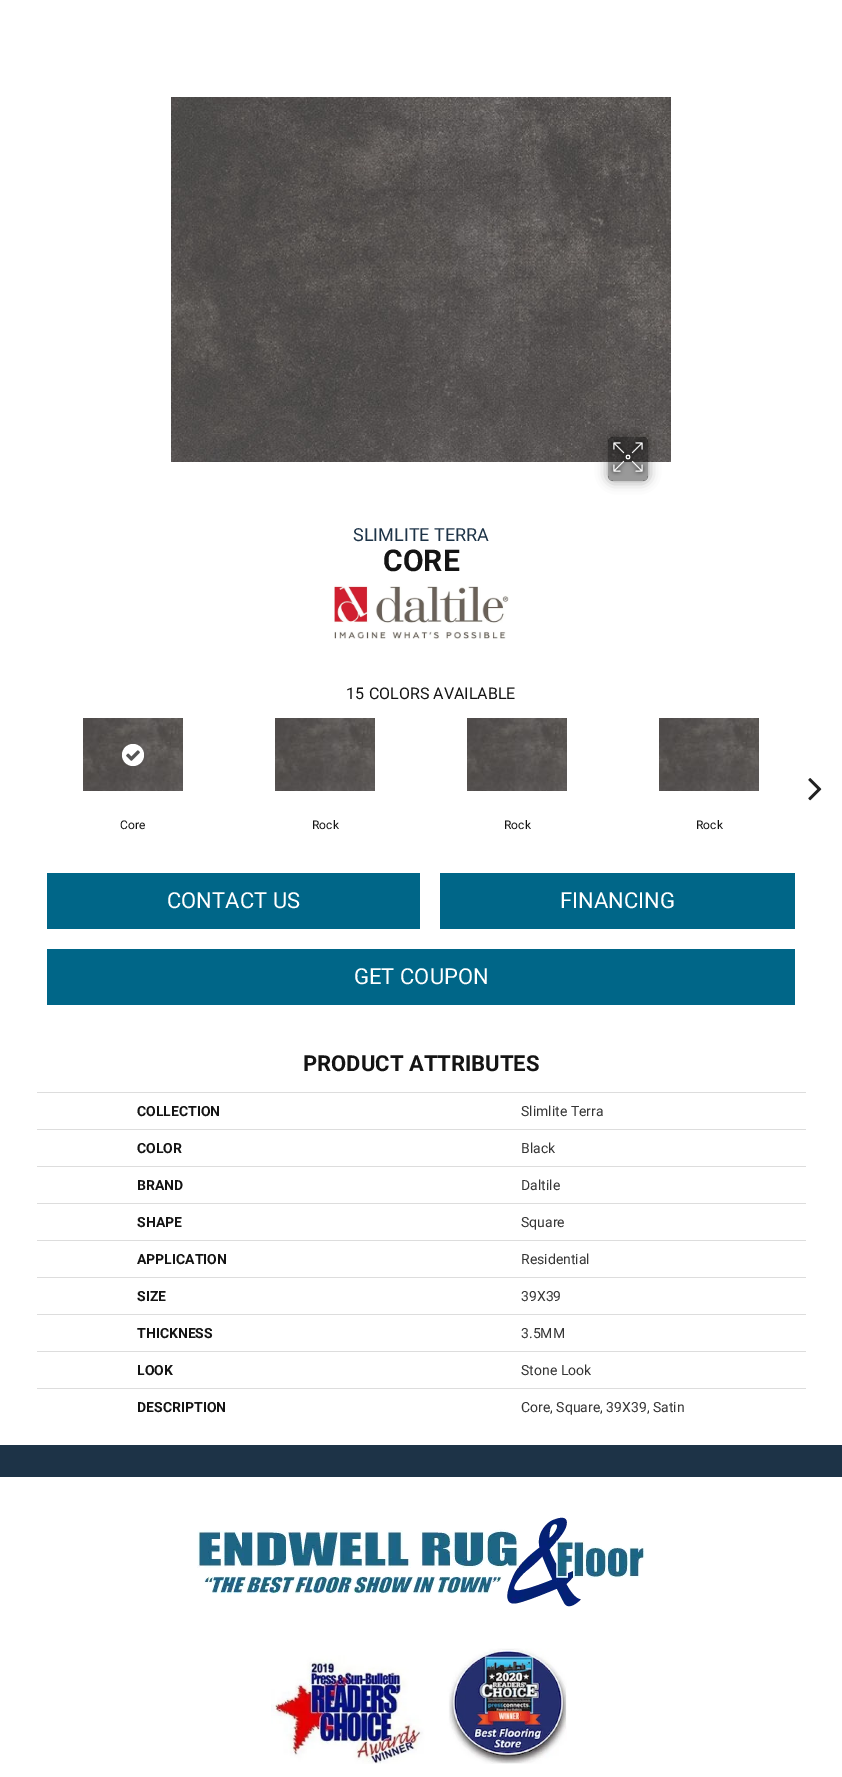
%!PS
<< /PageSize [842 1777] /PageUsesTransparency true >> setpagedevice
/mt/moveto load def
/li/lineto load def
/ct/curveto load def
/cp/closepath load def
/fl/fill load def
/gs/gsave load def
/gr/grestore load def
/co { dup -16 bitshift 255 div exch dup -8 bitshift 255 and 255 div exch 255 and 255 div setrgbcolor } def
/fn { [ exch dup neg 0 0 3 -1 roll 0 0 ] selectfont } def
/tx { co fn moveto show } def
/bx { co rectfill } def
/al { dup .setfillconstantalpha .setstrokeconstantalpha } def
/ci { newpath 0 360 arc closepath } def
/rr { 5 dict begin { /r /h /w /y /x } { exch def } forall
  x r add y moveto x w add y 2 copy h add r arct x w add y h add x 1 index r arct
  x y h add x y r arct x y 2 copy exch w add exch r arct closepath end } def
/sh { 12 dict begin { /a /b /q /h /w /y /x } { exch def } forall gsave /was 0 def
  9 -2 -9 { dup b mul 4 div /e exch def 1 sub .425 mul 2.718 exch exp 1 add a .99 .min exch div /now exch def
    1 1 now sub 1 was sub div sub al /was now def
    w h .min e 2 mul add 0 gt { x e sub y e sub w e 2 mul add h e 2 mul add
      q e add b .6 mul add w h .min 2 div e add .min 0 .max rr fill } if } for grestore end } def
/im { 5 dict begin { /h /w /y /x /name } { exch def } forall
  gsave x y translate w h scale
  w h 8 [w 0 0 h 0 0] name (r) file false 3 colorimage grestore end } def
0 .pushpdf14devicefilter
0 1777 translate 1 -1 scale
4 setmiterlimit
0 0 842 1777 16#FFFFFF bx
(media/1.raw) 171 97 500 365 im
gs
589 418 mt 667 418 li 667 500 li 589 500 li cp 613 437 mt 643 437 li 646 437 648 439 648 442 ct 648 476 li 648 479 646 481 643 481 ct 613 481 li 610 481 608 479 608 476 ct 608 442 li 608 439 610 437 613 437 ct cp eoclip newpath
16#000000 co
608 437 40 44 5 6 .41 sh
gr
0.4 al
16#000000 co
608 437 40 44 5 rr fl
1 al
(media/2.raw) 609 439 38 37 im
(media/3.raw) 334 585 175 54 im
(media/4.raw) 808 778 14 23 im
(media/5.raw) 83 718 100 73 im
16#FFFFFF co
133 755 11 ci fl
(media/6.raw) 126 750 14 11 im
(media/5.raw) 275 718 100 73 im
(media/5.raw) 467 718 100 73 im
(media/5.raw) 659 718 100 73 im
47 873 373 56 16#006688 bx
440 873 355 56 16#006688 bx
47 949 748 56 16#006688 bx
37 1092 769 1 16#DDDDDD bx
37 1129 769 1 16#DDDDDD bx
37 1166 769 1 16#DDDDDD bx
37 1203 769 1 16#DDDDDD bx
37 1240 769 1 16#DDDDDD bx
37 1277 769 1 16#DDDDDD bx
37 1314 769 1 16#DDDDDD bx
37 1351 769 1 16#DDDDDD bx
37 1388 769 1 16#DDDDDD bx
0 1445 842 32 16#1D3347 bx
(media/7.raw) 197 1517 448 90 im
(media/8.raw) 271 1648 296 116 im
(SLIMLITE TERRA) 353 541 /Roboto-Regular 18 16#1D3347 tx
(CORE) 383 571 /Roboto-Bold 30 16#141414 tx
(15) 346 699 /Roboto-Regular 16 16#141414 tx
(COLORS AVAILABLE) 369 699 /Roboto-Regular 16 16#141414 tx
(Core) 120 829 /Roboto-Regular 12 16#141414 tx
(Rock) 312 829 /Roboto-Regular 12 16#141414 tx
(Rock) 504 829 /Roboto-Regular 12 16#141414 tx
(Rock) 696 829 /Roboto-Regular 12 16#141414 tx
(CONTACT US) 167 908 /Roboto-Regular 22 16#FFFFFF tx
(FINANCING) 560 908 /Roboto-Regular 22 16#FFFFFF tx
(GET COUPON) 354 984 /Roboto-Regular 22 16#FFFFFF tx
(PRODUCT ATTRIBUTES) 303 1071 /Roboto-Bold 22 16#141414 tx
(COLLECTION) 137 1116 /Roboto-Bold 14 16#141414 tx
(Slimlite Terra) 521 1116 /Roboto-Regular 14 16#353535 tx
(COLOR) 137 1153 /Roboto-Bold 14 16#141414 tx
(Black) 521 1153 /Roboto-Regular 14 16#353535 tx
(BRAND) 137 1190 /Roboto-Bold 14 16#141414 tx
(Daltile) 521 1190 /Roboto-Regular 14 16#353535 tx
(SHAPE) 137 1227 /Roboto-Bold 14 16#141414 tx
(Square) 521 1227 /Roboto-Regular 14 16#353535 tx
(APPLICATION) 137 1264 /Roboto-Bold 14 16#141414 tx
(Residential) 521 1264 /Roboto-Regular 14 16#353535 tx
(SIZE) 137 1301 /Roboto-Bold 14 16#141414 tx
(39X39) 521 1301 /Roboto-Regular 14 16#353535 tx
(THICKNESS) 137 1338 /Roboto-Bold 14 16#141414 tx
(3.5MM) 521 1338 /Roboto-Regular 14 16#353535 tx
(LOOK) 137 1375 /Roboto-Bold 14 16#141414 tx
(Stone Look) 521 1375 /Roboto-Regular 14 16#353535 tx
(DESCRIPTION) 137 1412 /Roboto-Bold 14 16#141414 tx
(Core, Square, 39X39, Satin) 521 1412 /Roboto-Regular 14 16#353535 tx
.poppdf14devicefilter showpage
